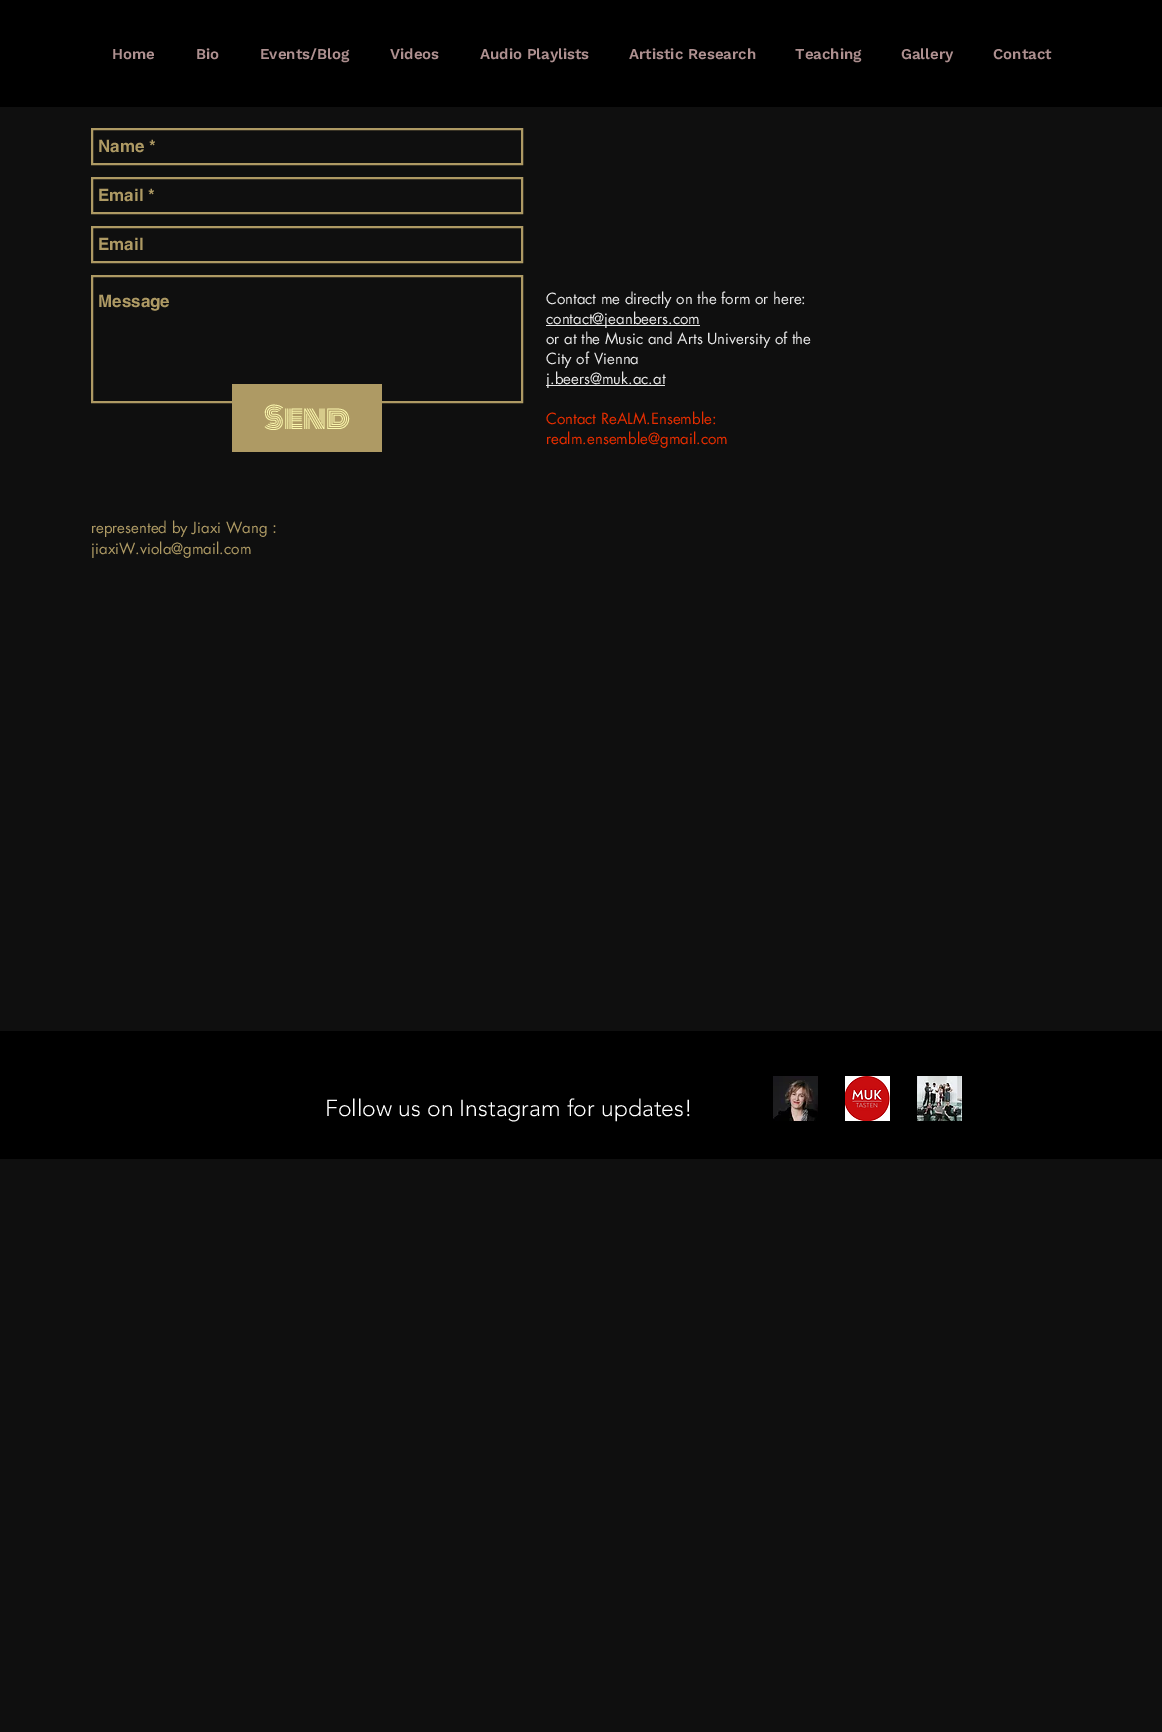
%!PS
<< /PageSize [1162 1732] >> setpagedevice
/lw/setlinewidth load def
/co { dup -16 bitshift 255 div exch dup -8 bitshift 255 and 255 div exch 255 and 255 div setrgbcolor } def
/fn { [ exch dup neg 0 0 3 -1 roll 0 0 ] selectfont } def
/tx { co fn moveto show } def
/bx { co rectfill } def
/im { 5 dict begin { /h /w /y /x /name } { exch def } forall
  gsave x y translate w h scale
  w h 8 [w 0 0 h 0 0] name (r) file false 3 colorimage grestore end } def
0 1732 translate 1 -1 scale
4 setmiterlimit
0 0 1162 1732 16#0F0F0F bx
0 0 1162 107 16#000000 bx
16#AE9A64 co
2 lw
92 129 430 35 rectstroke
92 178 430 35 rectstroke
92 227 430 35 rectstroke
92 276 430 126 rectstroke
232 384 150 68 16#AE9A64 bx
546 325 154 1 16#E8E8E8 bx
546 385 119 1 16#E8E8E8 bx
0 1031 1162 128 16#000000 bx
(media/1.raw) 773 1076 45 45 im
(media/2.raw) 845 1076 45 45 im
(media/3.raw) 917 1076 45 45 im
(Home) 112 59 /WorkSans-SemiBold 15 16#AE9090 tx
(Bio) 196 59 /WorkSans-SemiBold 15 16#AE9090 tx
(Events/Blog) 260 59 /WorkSans-SemiBold 15 16#AE9090 tx
(Videos) 390 59 /WorkSans-SemiBold 15 16#AE9090 tx
(Audio Playlists) 480 59 /WorkSans-SemiBold 15 16#AE9090 tx
(Artistic Research) 629 59 /WorkSans-SemiBold 15 16#AE9090 tx
(Teaching) 795 59 /WorkSans-SemiBold 15 16#AE9090 tx
(Gallery) 901 59 /WorkSans-SemiBold 15 16#AE9090 tx
(Contact) 993 59 /WorkSans-SemiBold 15 16#AE9090 tx
(Name *) 98 152 /helvetica-Bold 17 16#AE9A64 tx
(Email *) 98 201 /helvetica-Bold 17 16#AE9A64 tx
(Email) 98 250 /helvetica-Bold 17 16#AE9A64 tx
(Message) 98 307 /helvetica-Bold 17 16#AE9A64 tx
(Send) 264 429 /Monoton-Regular 29 16#FBF7AD tx
(Contact me directly on the form or here:) 546 304 /futura-Regular 15 16#E8E8E8 tx
(contact@jeanbeers.com) 546 324 /futura-Regular 15 16#E8E8E8 tx
(or at the Music and Arts University of the) 546 344 /futura-Regular 15 16#E8E8E8 tx
(City of Vienna) 546 364 /futura-Regular 15 16#E8E8E8 tx
(j.beers@muk.ac.at) 546 384 /futura-Regular 15 16#E8E8E8 tx
(Contact ReALM.Ensemble:) 546 424 /futura-Regular 15 16#E82E00 tx
(realm.ensemble@gmail.com) 546 444 /futura-Regular 15 16#E82E00 tx
(represented by Jiaxi Wang) 91 533 /futura-Regular 15 16#AE9A64 tx
(：) 267 533 /WenQuanYiZenHei-Medium 15 16#AE9A64 tx
(jiaxiW.viola@gmail.com) 91 554 /futura-Regular 15 16#AE9A64 tx
(Follow us on Instagram for updates!) 325 1116 /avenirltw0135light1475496-Light 23 16#FFFFFF tx
showpage
